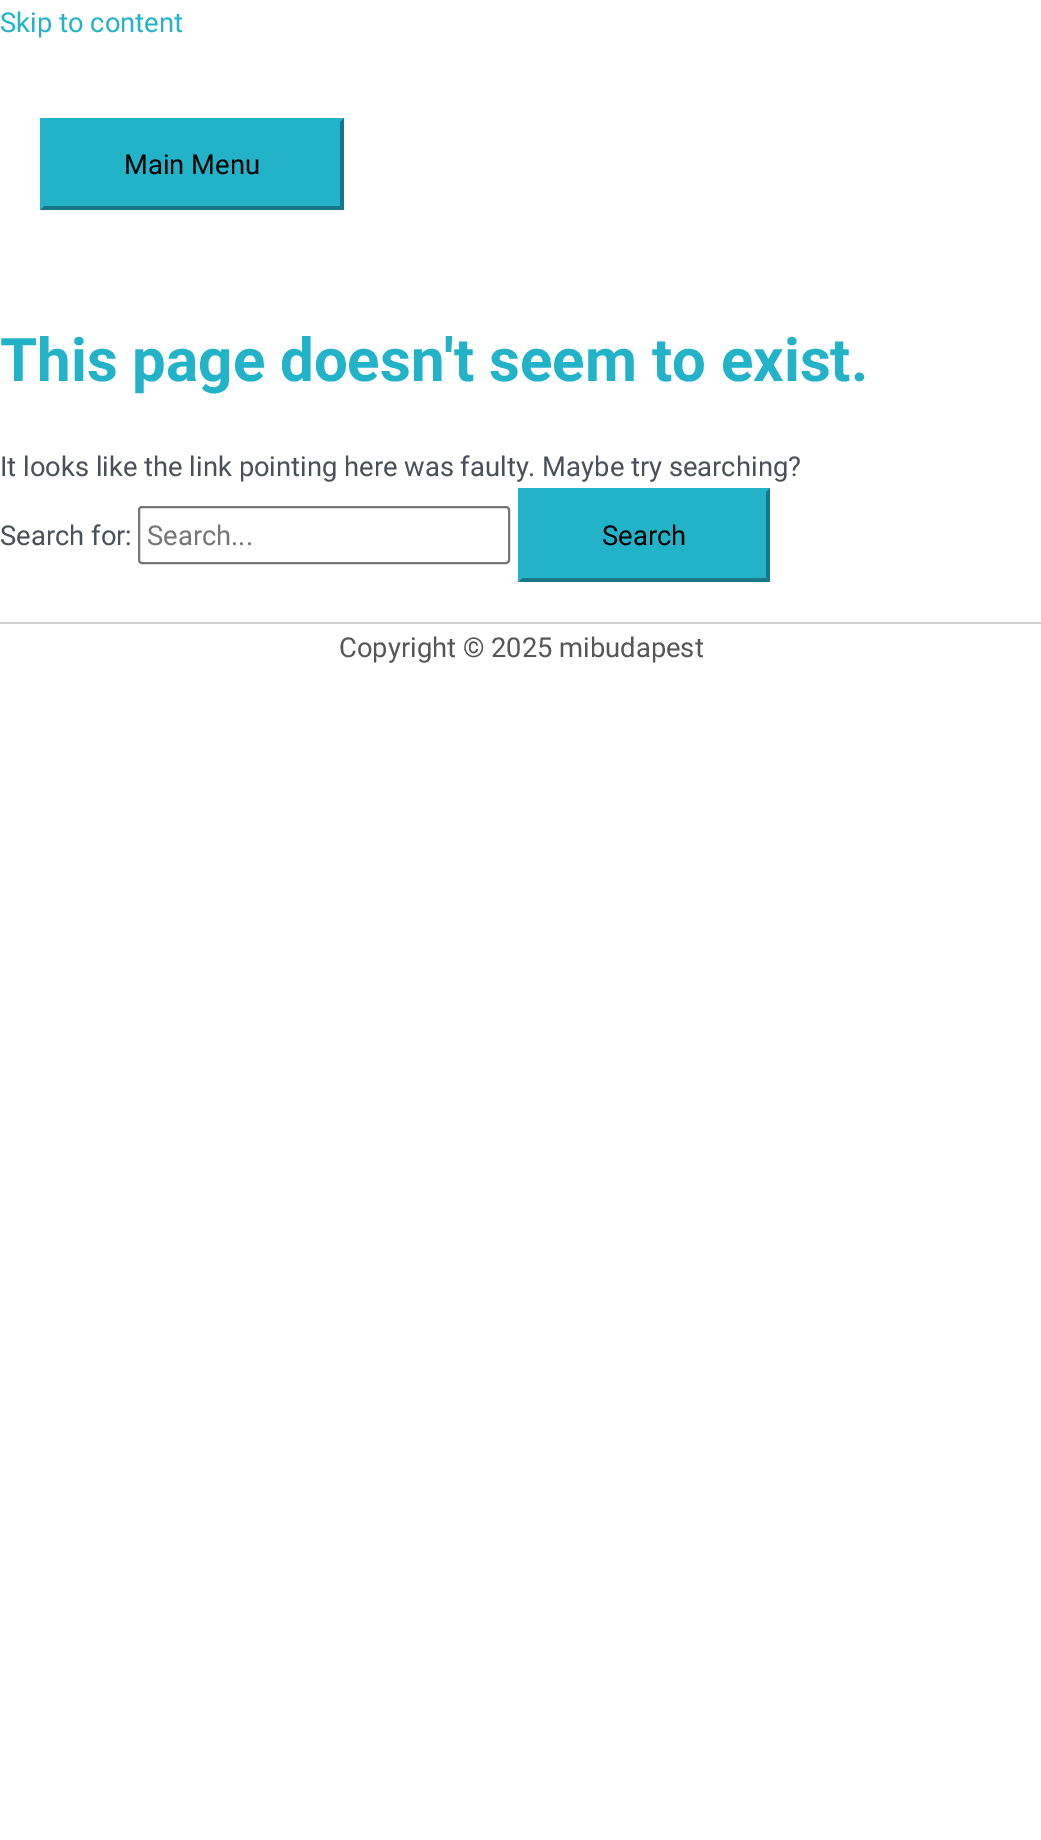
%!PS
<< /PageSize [1041 1840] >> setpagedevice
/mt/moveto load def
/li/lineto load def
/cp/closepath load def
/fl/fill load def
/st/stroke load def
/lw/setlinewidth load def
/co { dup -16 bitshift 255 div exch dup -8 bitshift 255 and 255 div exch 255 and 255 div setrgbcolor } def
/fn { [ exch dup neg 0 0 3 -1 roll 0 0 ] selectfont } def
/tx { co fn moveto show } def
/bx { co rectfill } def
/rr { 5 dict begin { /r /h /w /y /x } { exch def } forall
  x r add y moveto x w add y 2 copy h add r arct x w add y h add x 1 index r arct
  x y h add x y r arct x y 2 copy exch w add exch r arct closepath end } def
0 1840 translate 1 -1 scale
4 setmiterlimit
0 0 1041 1840 16#FFFFFF bx
40 118 304 92 16#22B3C9 bx
16#177786 co
344 118 mt 344 210 li 340 206 li 340 122 li cp fl
344 210 mt 40 210 li 44 206 li 340 206 li cp fl
16#22B3C9 co
40 210 mt 40 118 li 44 122 li 44 206 li cp fl
16#767676 co
2 lw
139 507 370 56 3 rr st
518 488 252 94 16#22B3C9 bx
16#177786 co
770 488 mt 770 582 li 766 578 li 766 492 li cp fl
770 582 mt 518 582 li 522 578 li 766 578 li cp fl
16#22B3C9 co
518 582 mt 518 488 li 522 492 li 522 578 li cp fl
0 622 1041 2 16#D3D3D3 bx
(Skip to content) 0 32 /Roboto-Regular 27.35 16#22B3C9 tx
(Main Menu) 124 174 /Roboto-Regular 27.35 16#000000 tx
(This page doesn't seem to exist.) 0 381 /Roboto-Bold 60 16#22B3C9 tx
(It looks like the link pointing here was faulty. Maybe try searching?) 0 476 /Roboto-Regular 27.35 16#4B4F58 tx
(Search for:) 0 545 /Roboto-Regular 27.35 16#4B4F58 tx
(Search...) 147 545 /Roboto-Regular 27.35 16#757575 tx
(Search) 602 545 /Roboto-Regular 27.35 16#000000 tx
(Copyright © 2025 mibudapest) 339 657 /Roboto-Regular 27.35 16#565656 tx
showpage
